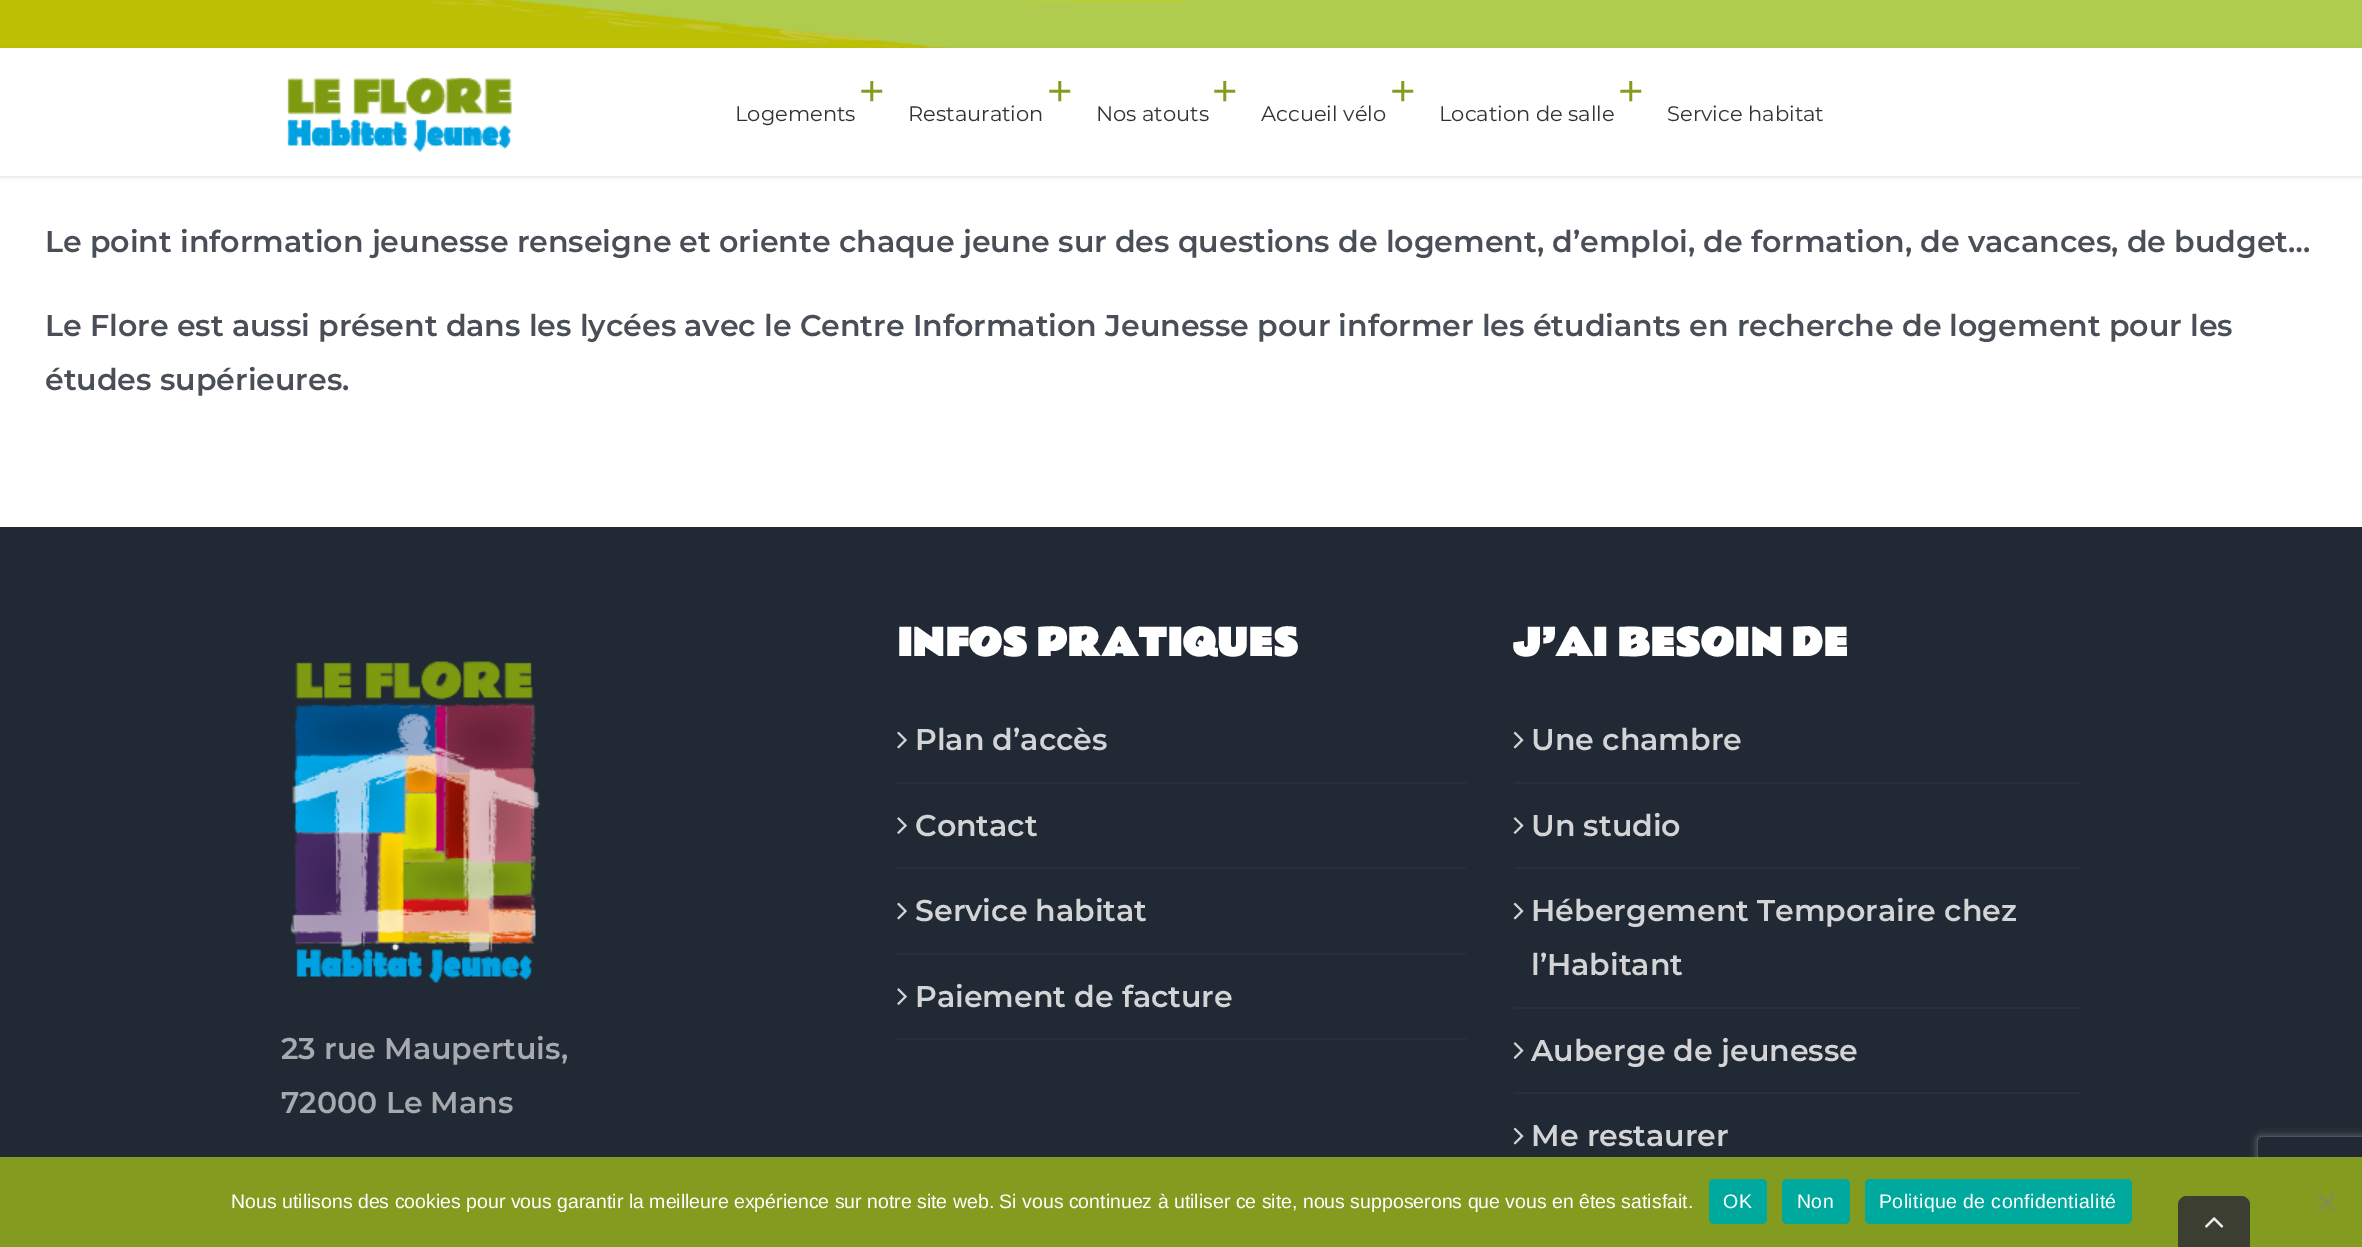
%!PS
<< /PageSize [2362 1247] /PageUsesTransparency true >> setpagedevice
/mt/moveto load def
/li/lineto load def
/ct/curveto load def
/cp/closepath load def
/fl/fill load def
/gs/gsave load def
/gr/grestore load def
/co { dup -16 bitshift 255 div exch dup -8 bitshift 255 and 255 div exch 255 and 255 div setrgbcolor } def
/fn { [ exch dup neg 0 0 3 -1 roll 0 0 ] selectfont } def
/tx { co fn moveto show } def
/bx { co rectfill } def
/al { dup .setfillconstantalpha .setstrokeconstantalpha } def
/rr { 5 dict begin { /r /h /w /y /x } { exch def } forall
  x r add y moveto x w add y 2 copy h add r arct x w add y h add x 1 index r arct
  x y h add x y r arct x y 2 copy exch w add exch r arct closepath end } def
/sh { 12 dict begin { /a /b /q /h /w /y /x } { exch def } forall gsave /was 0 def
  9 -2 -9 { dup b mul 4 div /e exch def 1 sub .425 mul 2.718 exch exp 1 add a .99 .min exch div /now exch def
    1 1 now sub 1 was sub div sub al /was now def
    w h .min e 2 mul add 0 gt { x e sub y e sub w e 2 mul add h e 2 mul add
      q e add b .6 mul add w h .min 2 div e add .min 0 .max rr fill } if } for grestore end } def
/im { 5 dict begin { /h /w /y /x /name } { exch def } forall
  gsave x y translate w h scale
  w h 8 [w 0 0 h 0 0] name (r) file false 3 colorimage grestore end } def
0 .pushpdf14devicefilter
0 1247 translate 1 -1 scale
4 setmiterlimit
0 0 2362 1247 16#FFFFFF bx
(media/1.raw) 0 0 2362 48 im
16#000000 co
0 50 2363 127 0 2 .12 sh
0 48 2362 128 16#FFFFFF bx
(media/2.raw) 287 77 225 75 im
0 527 2362 630 16#212934 bx
(media/3.raw) 290 661 251 322 im
897 782 569 2 16#26303E bx
(media/4.raw) 897 731 10 18 im
897 867 569 2 16#26303E bx
(media/5.raw) 897 817 10 17 im
897 953 569 2 16#26303E bx
(media/4.raw) 897 902 10 18 im
897 1038 569 2 16#26303E bx
(media/5.raw) 897 988 10 17 im
1514 782 567 2 16#26303E bx
(media/6.raw) 1513 731 11 18 im
1514 867 567 2 16#26303E bx
(media/7.raw) 1513 817 11 17 im
1514 1007 567 2 16#26303E bx
(media/6.raw) 1513 902 11 18 im
1514 1092 567 2 16#26303E bx
(media/7.raw) 1513 1042 11 17 im
(media/6.raw) 1513 1127 11 18 im
gs
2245 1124 mt 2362 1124 li 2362 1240 li 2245 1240 li cp 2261 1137 mt 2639 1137 li 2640.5 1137 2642 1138.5 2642 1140 ct 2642 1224 li 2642 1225.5 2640.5 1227 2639 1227 ct 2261 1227 li 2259.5 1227 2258 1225.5 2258 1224 ct 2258 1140 li 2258 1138.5 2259.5 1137 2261 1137 ct cp eoclip newpath
16#808080 co
2258 1137 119 90 3 4 1 sh
gr
0 1157 2362 90 16#839C1F bx
16#00A99D co
1709 1179 58 45 5 rr fl
1782 1179 68 45 5 rr fl
1865 1179 267 45 5 rr fl
16#828E50 co
2333.5 1193.5 mt 2335.5 1195.5 li 2319.5 1211.5 li 2317.5 1209.5 li cp fl
2317.5 1195.5 mt 2319.5 1193.5 li 2335.5 1209.5 li 2333.5 1211.5 li cp fl
16#3B3E31 co
2187 1196 mt 2241 1196 li 2246 1196 2250 1200 2250 1205 ct 2250 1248 li 2178 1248 li 2178 1205 li 2178 1200 2182 1196 2187 1196 ct cp fl
(media/8.raw) 2205 1217 19 11 im
(+) 858 108 /Montserrat-Regular 48 16#839C1F tx
(Logements) 735 121 /Montserrat-Regular 21 16#333333 tx
(+) 1046 108 /Montserrat-Regular 48 16#839C1F tx
(Restauration) 908 121 /Montserrat-Regular 21 16#333333 tx
(+) 1211 108 /Montserrat-Regular 48 16#839C1F tx
(Nos atouts) 1096 121 /Montserrat-Regular 21 16#333333 tx
(+) 1389 108 /Montserrat-Regular 48 16#839C1F tx
(Accueil vélo) 1261 121 /Montserrat-Regular 21 16#333333 tx
(+) 1617 108 /Montserrat-Regular 48 16#839C1F tx
(Location de salle) 1439 121 /Montserrat-Regular 21 16#333333 tx
(Service habitat) 1667 121 /Montserrat-Regular 21 16#333333 tx
(Le point information jeunesse renseigne et oriente chaque jeune sur des questions de logement, d’emploi, de formation, de vacances, de budget…) 45 252 /Montserrat-SemiBold 30 16#4A4E57 tx
(Le Flore est aussi présent dans les lycées avec le Centre Information Jeunesse pour informer les étudiants en recherche de logement pour les) 45 336 /Montserrat-SemiBold 30 16#4A4E57 tx
(études supérieures.) 45 390 /Montserrat-SemiBold 30 16#4A4E57 tx
(23 rue Maupertuis,) 281 1059 /Montserrat-SemiBold 30 16#A6A9AE tx
(72000 Le Mans) 281 1113 /Montserrat-SemiBold 30 16#A6A9AE tx
(INFOS PRATIQUES) 897 656 /RammettoOne-Bold 36 16#FFFFFF tx
(Plan d’accès) 915 750 /Montserrat-SemiBold 30 16#D3D4D6 tx
(Contact) 915 836 /Montserrat-SemiBold 30 16#D3D4D6 tx
(Service habitat) 915 921 /Montserrat-SemiBold 30 16#D3D4D6 tx
(Paiement de facture) 915 1007 /Montserrat-SemiBold 30 16#D3D4D6 tx
(J’AI BESOIN DE) 1513 656 /RammettoOne-Bold 36 16#FFFFFF tx
(Une chambre) 1531 750 /Montserrat-SemiBold 30 16#D3D4D6 tx
(Un studio) 1531 836 /Montserrat-SemiBold 30 16#D3D4D6 tx
(Hébergement Temporaire chez) 1531 921 /Montserrat-SemiBold 30 16#D3D4D6 tx
(l’Habitant) 1531 975 /Montserrat-SemiBold 30 16#D3D4D6 tx
(Auberge de jeunesse) 1531 1061 /Montserrat-SemiBold 30 16#D3D4D6 tx
(Me restaurer) 1531 1146 /Montserrat-SemiBold 30 16#D3D4D6 tx
(Nous utilisons des cookies pour vous garantir la meilleure expérience sur notre site web. Si vous continuez à utiliser ce site, nous supposerons que vous en êtes satisfait.) 231 1208 /LiberationSans-Regular 19.5 16#FFFFFF tx
1723 1208 mt .4 0 (OK) ashow
1797 1208 mt .4 0 (Non) ashow
1879 1208 mt .4 0 (Politique de confidentialité) ashow
.poppdf14devicefilter showpage
